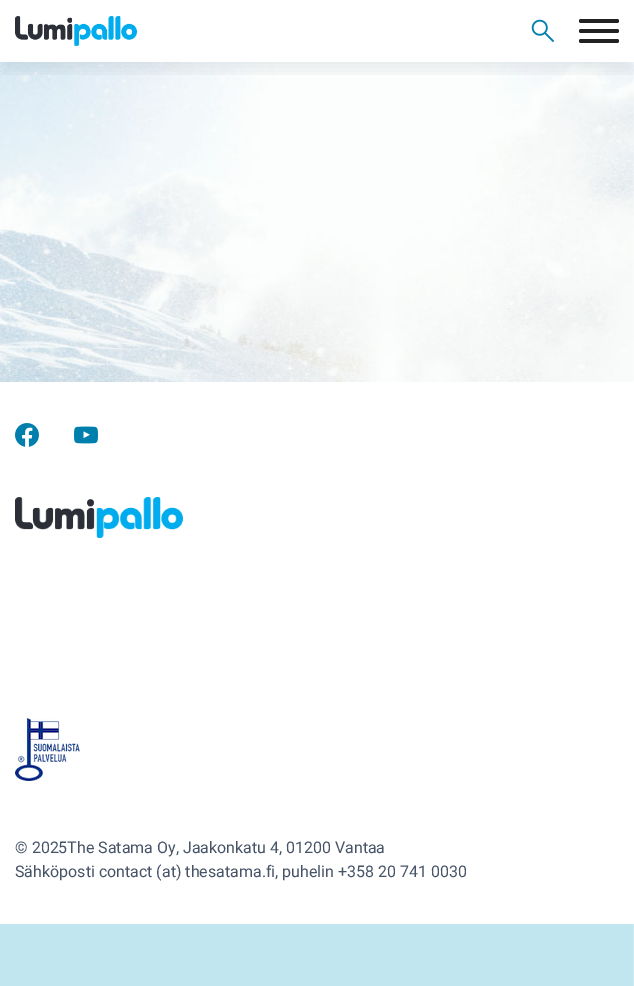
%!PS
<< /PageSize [634 986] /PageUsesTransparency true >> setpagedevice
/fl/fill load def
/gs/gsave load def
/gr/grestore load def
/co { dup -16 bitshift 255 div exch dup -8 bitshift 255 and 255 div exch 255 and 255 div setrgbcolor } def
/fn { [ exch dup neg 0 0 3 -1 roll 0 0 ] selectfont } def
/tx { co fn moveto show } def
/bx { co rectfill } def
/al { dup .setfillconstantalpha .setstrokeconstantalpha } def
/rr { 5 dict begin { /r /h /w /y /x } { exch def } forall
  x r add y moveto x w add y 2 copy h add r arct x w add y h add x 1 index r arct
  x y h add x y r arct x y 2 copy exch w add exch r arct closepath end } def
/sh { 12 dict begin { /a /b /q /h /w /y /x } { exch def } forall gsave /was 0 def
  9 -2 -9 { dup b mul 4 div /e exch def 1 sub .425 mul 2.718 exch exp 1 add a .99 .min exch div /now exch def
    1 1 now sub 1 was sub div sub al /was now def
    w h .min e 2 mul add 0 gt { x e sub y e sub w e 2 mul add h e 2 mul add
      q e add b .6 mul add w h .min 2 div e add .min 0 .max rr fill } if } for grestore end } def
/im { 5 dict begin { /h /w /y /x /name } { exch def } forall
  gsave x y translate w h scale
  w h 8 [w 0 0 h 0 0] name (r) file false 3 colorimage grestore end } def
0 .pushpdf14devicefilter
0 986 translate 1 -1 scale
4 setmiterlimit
0 0 634 986 16#FFFFFF bx
(media/1.raw) 0 62 634 924 im
gs
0 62 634 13 rectclip
16#101828 co
4 16 626 54 0 8 .08 sh
gr
(media/2.raw) 15 16 122 30 im
(media/3.raw) 531 19 24 24 im
16#222222 co
579 19 40 4 2 rr fl
579 29 40 4 2 rr fl
579 39 40 4 2 rr fl
0 382 634 542 16#FFFFFF bx
(media/4.raw) 15 423 24 24 im
(media/5.raw) 74 426 24 18 im
(media/6.raw) 15 497 168 41 im
(media/7.raw) 15 718 65 63 im
(© 2025The Satama Oy, Jaakonkatu 4, 01200 Vantaa) 15 853 /Roboto-Regular 16 16#475467 tx
(Sähköposti contact \(at\) thesatama.fi, puhelin +358 20 741 0030) 15 877 /Roboto-Regular 16 16#475467 tx
.poppdf14devicefilter showpage
